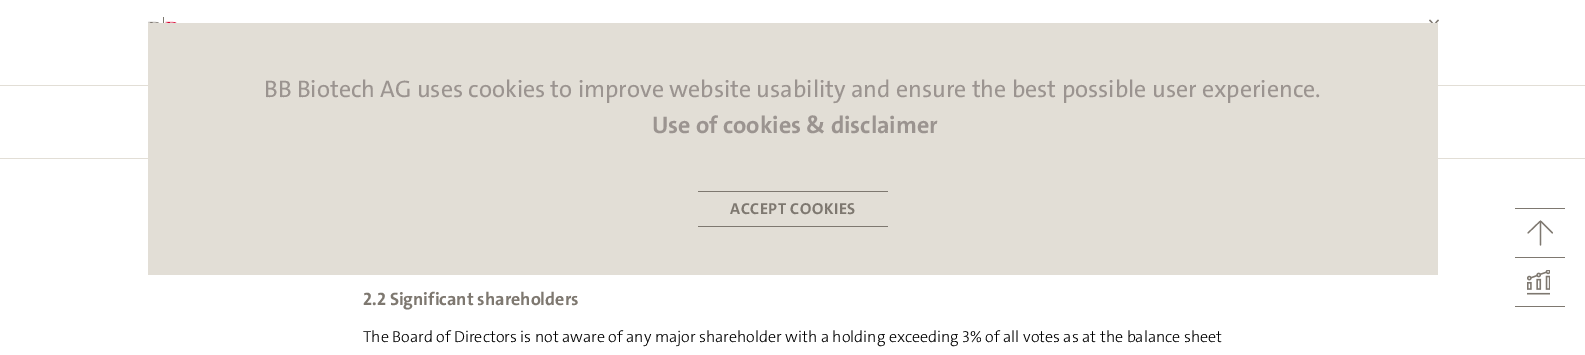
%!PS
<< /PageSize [1585 355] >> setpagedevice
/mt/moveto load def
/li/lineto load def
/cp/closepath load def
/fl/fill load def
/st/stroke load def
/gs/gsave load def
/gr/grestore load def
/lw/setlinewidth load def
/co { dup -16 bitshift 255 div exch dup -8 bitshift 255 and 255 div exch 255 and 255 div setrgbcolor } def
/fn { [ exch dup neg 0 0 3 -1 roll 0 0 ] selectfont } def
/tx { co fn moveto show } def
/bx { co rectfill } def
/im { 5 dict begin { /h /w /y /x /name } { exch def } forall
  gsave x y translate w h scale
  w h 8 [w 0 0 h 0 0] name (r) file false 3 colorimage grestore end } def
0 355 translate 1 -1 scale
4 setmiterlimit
0 0 1585 355 16#FFFFFF bx
(media/1.raw) 148 17 29 6 im
16#7E7870 co
1439 20.5 mt 1434 25.5 li 1433.5 24.5 li 1438 19.5 li cp fl
1434.5 24.5 mt 1434 25.5 li 1429 20.5 li 1430 19.5 li cp fl
0 85 1585 1 16#E2DED6 bx
0 158 1585 1 16#E2DED6 bx
148 23 1290 252 16#E2DED6 bx
698 191 190 1 16#7E7870 bx
698 226 190 1 16#7E7870 bx
1515 208 50 1 16#7E7870 bx
1.2 lw
1 setlinecap
1 setlinejoin
1540.5 221 mt 1540.5 245 li st
gs
1527 221 26 25 rectclip
1528 233 mt 1540.5 221 li 1552.5 233 li st
gr
1515 257 50 1 16#7E7870 bx
1515 306 50 1 16#7E7870 bx
(media/2.raw) 1527 270 23 25 im
(BB Biotech AG uses cookies to improve website usability and ensure the best possible user experience.) 264 97 /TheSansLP-Regular 24 16#9B9490 tx
(Use of cookies & disclaimer) 652 133 /TheSansLP-Bold 24 16#9B9490 tx
/TheSansLP-Bold 16 fn
16#7E7870 co
730 214 mt .5 0 (ACCEPT COOKIES) ashow
(2.2 Significant shareholders) 363 305 /TheSansLP-Bold 18 16#7E7870 tx
(The Board of Directors is not aware of any major shareholder with a holding exceeding 3% of all votes as at the balance sheet) 363 342 /TheSansLP-Light 16 16#000000 tx
showpage
